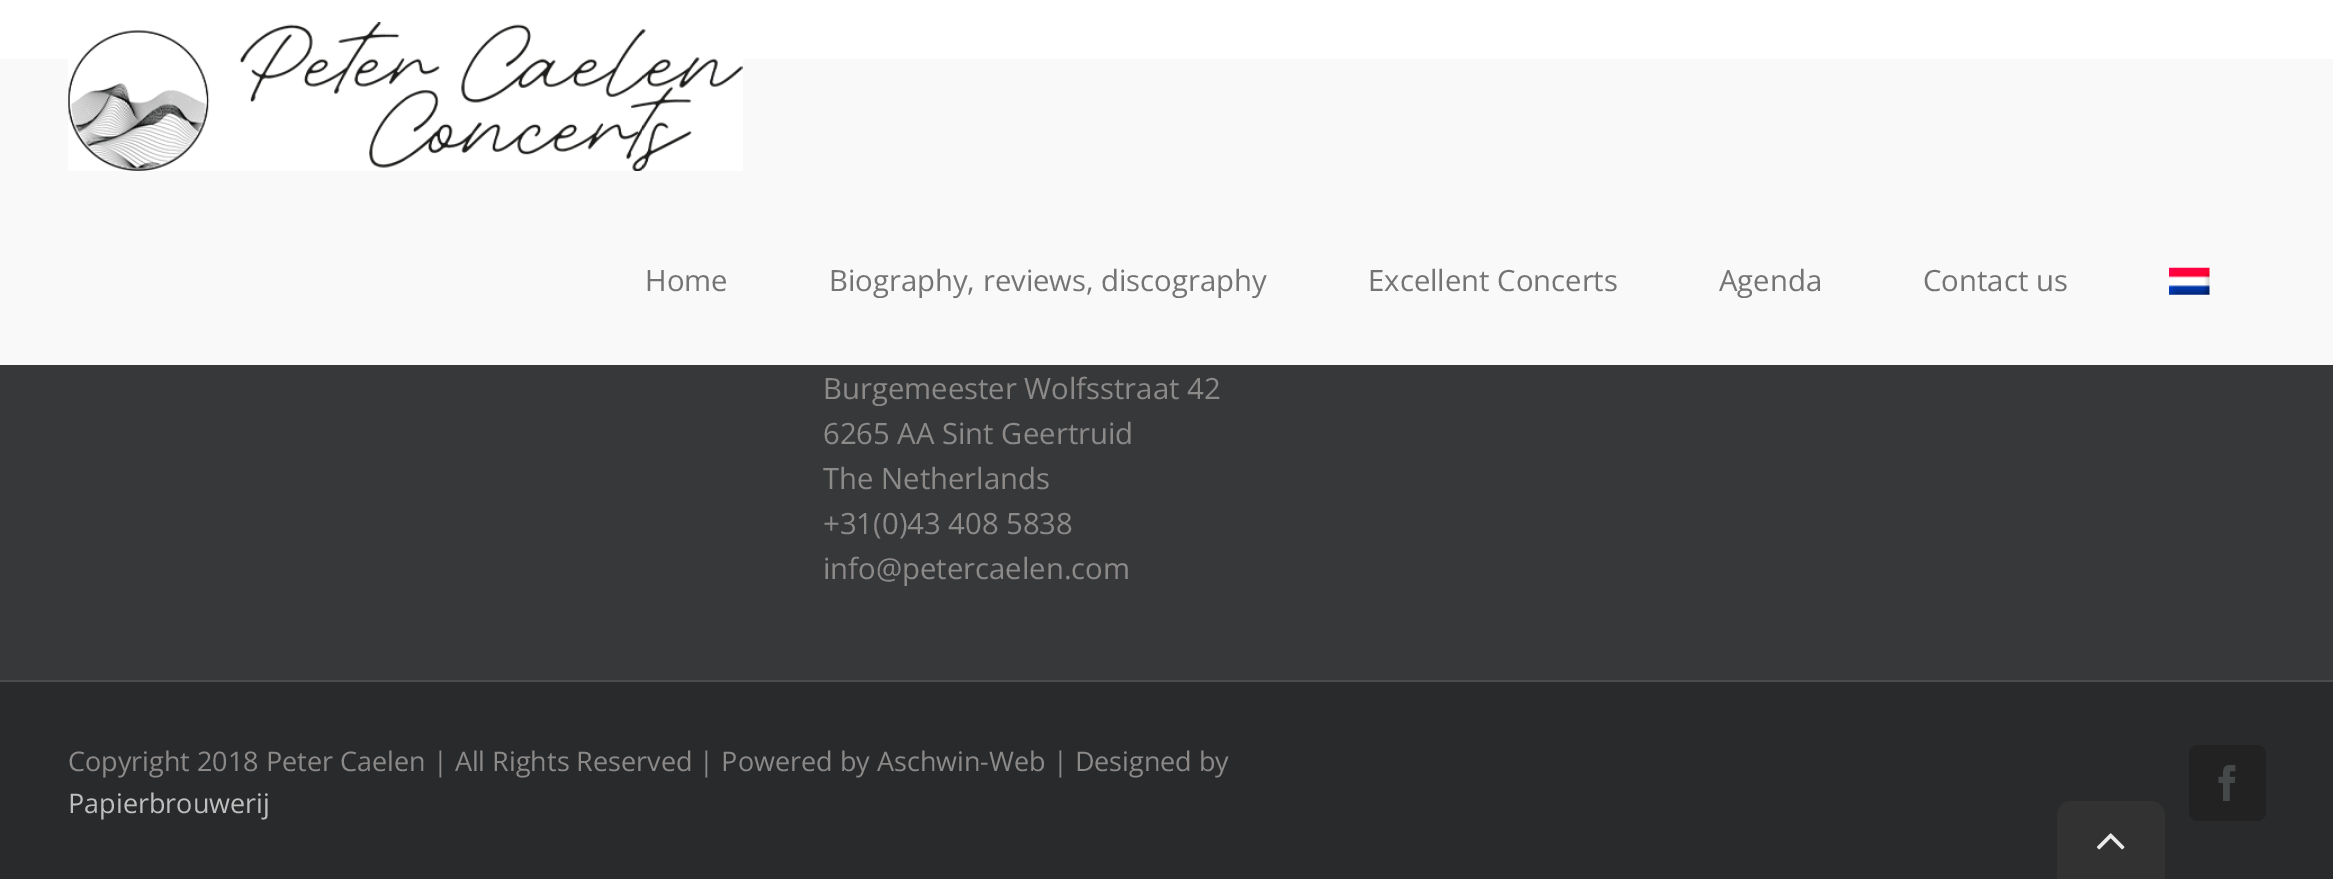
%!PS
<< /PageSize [2333 879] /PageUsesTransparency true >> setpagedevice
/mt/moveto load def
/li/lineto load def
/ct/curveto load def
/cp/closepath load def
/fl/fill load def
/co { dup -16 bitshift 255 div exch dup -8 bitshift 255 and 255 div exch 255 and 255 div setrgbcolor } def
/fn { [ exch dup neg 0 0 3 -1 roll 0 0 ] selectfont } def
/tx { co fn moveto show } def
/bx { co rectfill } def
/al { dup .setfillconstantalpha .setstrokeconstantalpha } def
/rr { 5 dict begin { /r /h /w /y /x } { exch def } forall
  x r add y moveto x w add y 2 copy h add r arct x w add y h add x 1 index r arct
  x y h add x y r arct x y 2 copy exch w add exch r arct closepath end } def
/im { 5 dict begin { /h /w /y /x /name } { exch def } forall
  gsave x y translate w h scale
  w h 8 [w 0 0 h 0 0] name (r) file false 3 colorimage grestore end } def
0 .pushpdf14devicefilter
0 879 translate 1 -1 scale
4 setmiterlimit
0 0 2333 879 16#FFFFFF bx
0 59 2333 621 16#363839 bx
0.97 al
0 59 2333 306 16#FFFFFF bx
1 al
(media/1.raw) 68 22 675 149 im
(media/2.raw) 2169 267 41 28 im
0 682 2333 197 16#282A2B bx
0 680 2333 2 16#4B4C4D bx
16#222222 co
2189 745 77 76 9 rr fl
(media/3.raw) 2218 765 18 36 im
16#323232 co
2071 801 mt 2151 801 li 2158.5 801 2165 807.5 2165 815 ct 2165 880 li 2057 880 li 2057 815 li 2057 807.5 2063.5 801 2071 801 ct cp fl
(media/4.raw) 2096 833 29 17 im
(Home) 645 291 /OpenSans-Regular 29.25 16#747474 tx
(Biography, reviews, discography) 829 291 /OpenSans-Regular 29.25 16#747474 tx
(Excellent Concerts) 1368 291 /OpenSans-Regular 29.25 16#747474 tx
(Agenda) 1719 291 /OpenSans-Regular 29.25 16#747474 tx
(Contact us) 1923 291 /OpenSans-Regular 29.25 16#747474 tx
(Burgemeester Wolfsstraat 42) 823 399 /OpenSans-Regular 29.25 16#8C8989 tx
(6265 AA Sint Geertruid) 823 444 /OpenSans-Regular 29.25 16#8C8989 tx
(The Netherlands) 823 489 /OpenSans-Regular 29.25 16#8C8989 tx
(+31\(0\)43 408 5838) 823 534 /OpenSans-Regular 29.25 16#8C8989 tx
(info@petercaelen.com) 823 579 /OpenSans-Regular 29.25 16#8C8989 tx
(Copyright 2018 Peter Caelen | All Rights Reserved | Powered by Aschwin-Web | Designed by) 68 771 /OpenSans-Regular 27 16#8C8989 tx
(Papierbrouwerij) 68 813 /OpenSans-Regular 27 16#BFBFBF tx
.poppdf14devicefilter showpage
